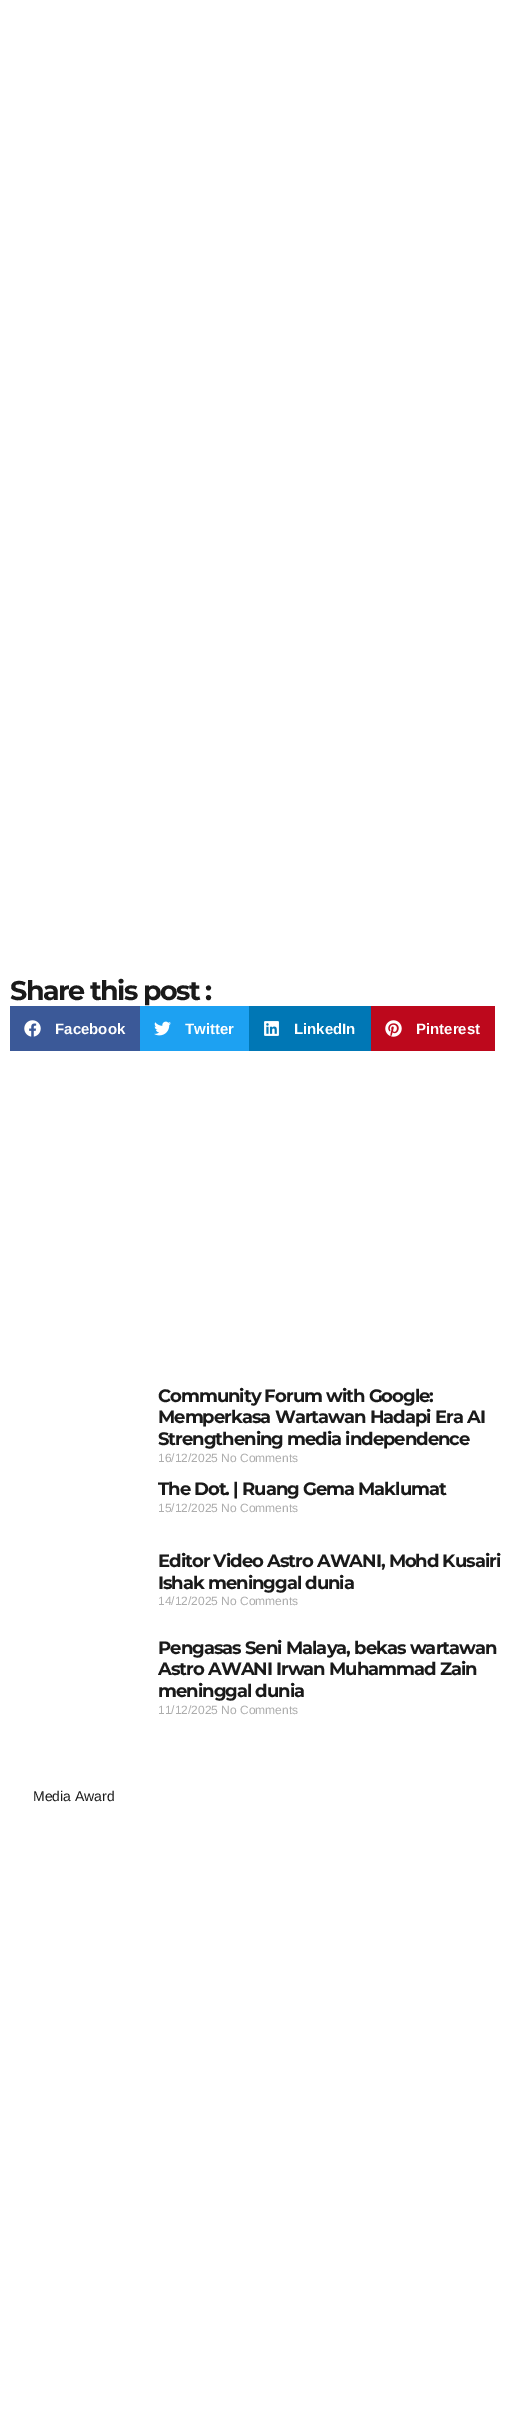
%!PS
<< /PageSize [532 2410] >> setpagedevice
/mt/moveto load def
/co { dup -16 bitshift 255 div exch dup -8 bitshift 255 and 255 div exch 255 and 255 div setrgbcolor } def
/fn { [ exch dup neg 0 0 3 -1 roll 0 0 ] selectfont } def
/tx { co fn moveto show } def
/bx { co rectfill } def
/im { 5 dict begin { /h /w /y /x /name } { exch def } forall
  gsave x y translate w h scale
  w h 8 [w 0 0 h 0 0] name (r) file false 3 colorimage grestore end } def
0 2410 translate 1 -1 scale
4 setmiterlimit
0 0 532 2410 16#FFFFFF bx
10 1006 130 45 16#3B5998 bx
(media/1.raw) 24 1020 17 17 im
140 1006 109 45 16#1DA1F2 bx
(media/2.raw) 154 1021 17 15 im
249 1006 122 45 16#0077B5 bx
(media/3.raw) 264 1021 15 15 im
371 1006 124 45 16#BD081C bx
(media/4.raw) 385 1020 17 17 im
/Montserrat-Bold 27 fn
16#1A1A1A co
10 1000 mt -1.5 0 (Share this post :) ashow
(Facebook) 55 1034 /LiberationSans-Bold 15 16#FFFFFF tx
(Twitter) 185 1034 /LiberationSans-Bold 15 16#FFFFFF tx
(LinkedIn) 294 1034 /LiberationSans-Bold 15 16#FFFFFF tx
(Pinterest) 416 1034 /LiberationSans-Bold 15 16#FFFFFF tx
/Montserrat-Bold 18 fn
16#1A1A1A co
158 1402 mt -1 0 (Community Forum with Google:) ashow
158 1423 mt -1 0 (Memperkasa Wartawan Hadapi Era AI) ashow
158 1445 mt -1 0 (Strengthening media independence) ashow
(16/12/2025 No Comments) 158 1462 /LiberationSans-Regular 12 16#ADADAD tx
/Montserrat-Bold 18 fn
16#1A1A1A co
158 1495 mt -1 0 (The Dot. | Ruang Gema Maklumat) ashow
(15/12/2025 No Comments) 158 1512 /LiberationSans-Regular 12 16#ADADAD tx
/Montserrat-Bold 18 fn
16#1A1A1A co
158 1567 mt -1 0 (Editor Video Astro AWANI, Mohd Kusairi) ashow
158 1589 mt -1 0 (Ishak meninggal dunia) ashow
(14/12/2025 No Comments) 158 1605 /LiberationSans-Regular 12 16#ADADAD tx
/Montserrat-Bold 18 fn
16#1A1A1A co
158 1654 mt -1 0 (Pengasas Seni Malaya, bekas wartawan) ashow
158 1675 mt -1 0 (Astro AWANI Irwan Muhammad Zain) ashow
158 1697 mt -1 0 (meninggal dunia) ashow
(11/12/2025 No Comments) 158 1714 /LiberationSans-Regular 12 16#ADADAD tx
(Media Award) 33 1801 /LiberationSans-Regular 14 16#1A1A1A tx
showpage
